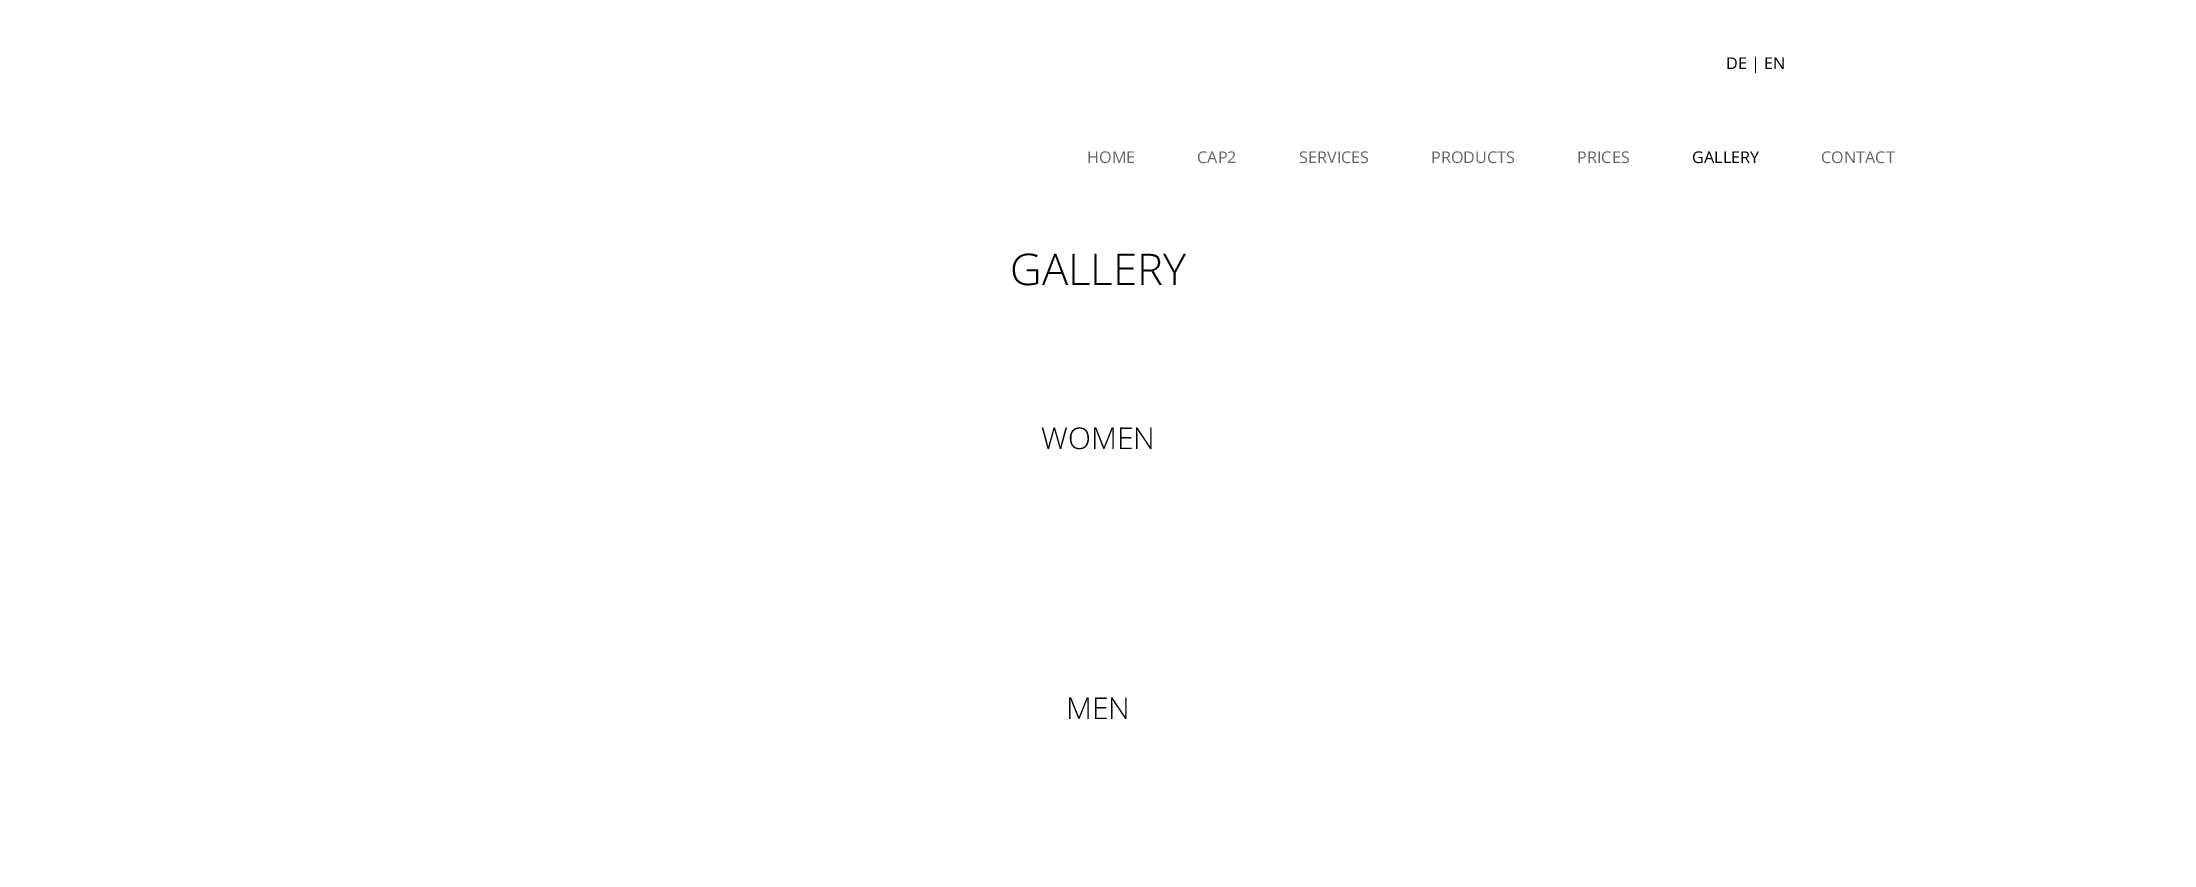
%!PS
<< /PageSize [2196 887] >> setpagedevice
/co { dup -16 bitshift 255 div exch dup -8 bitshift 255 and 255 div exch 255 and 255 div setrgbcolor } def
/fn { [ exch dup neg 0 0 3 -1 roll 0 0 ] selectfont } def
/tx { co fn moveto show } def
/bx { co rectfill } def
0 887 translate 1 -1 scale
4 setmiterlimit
0 0 2196 887 16#FFFFFF bx
(DE | EN) 1726 69 /OpenSans-Regular 16.25 16#000000 tx
(HOME) 1087 163 /OpenSans-Regular 16.25 16#666666 tx
(CAP2) 1197 163 /OpenSans-Regular 16.25 16#666666 tx
(SERVICES) 1299 163 /OpenSans-Regular 16.25 16#666666 tx
(PRODUCTS) 1431 163 /OpenSans-Regular 16.25 16#666666 tx
(PRICES) 1577 163 /OpenSans-Regular 16.25 16#666666 tx
(GALLERY) 1692 163 /OpenSans-Regular 16.25 16#000000 tx
(CONTACT) 1821 163 /OpenSans-Regular 16.25 16#666666 tx
(GALLERY) 1010 285 /OpenSans-Light 43.75 16#000000 tx
(WOMEN) 1041 449 /OpenSans-Light 30 16#000000 tx
(MEN) 1066 719 /OpenSans-Light 30 16#000000 tx
showpage
